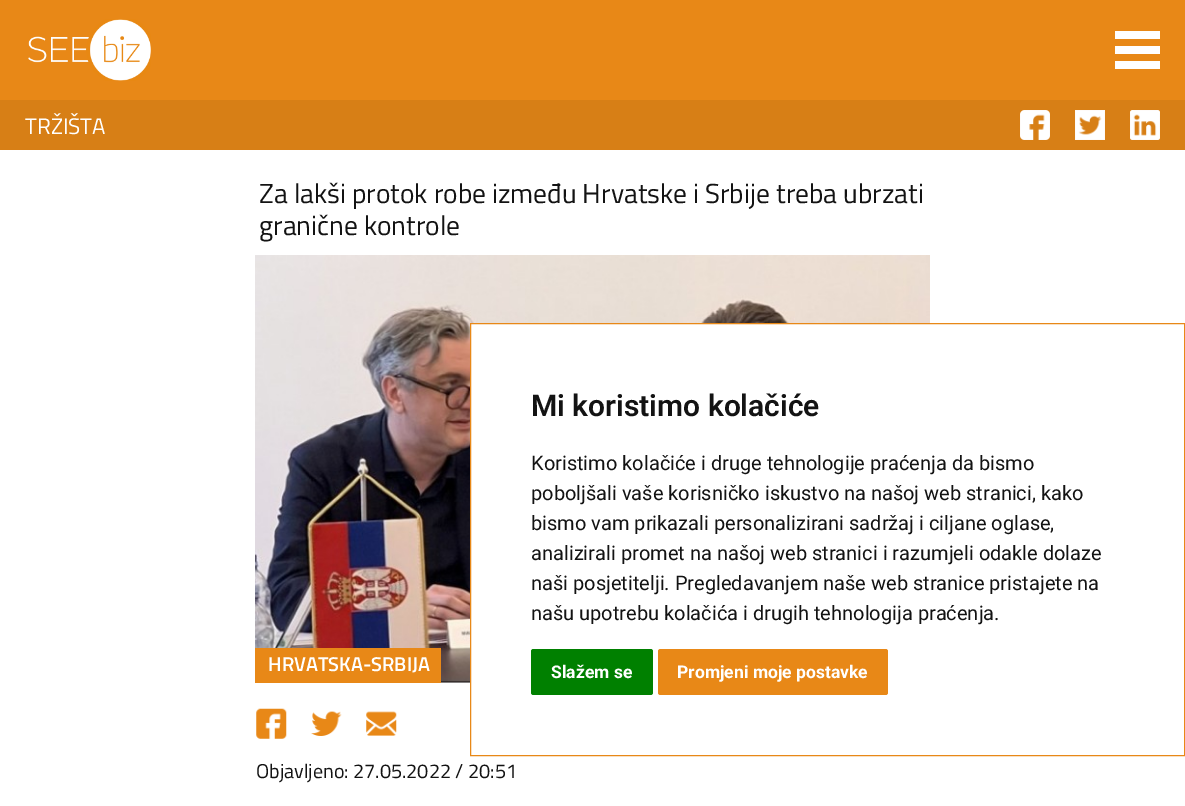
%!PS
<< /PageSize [1185 806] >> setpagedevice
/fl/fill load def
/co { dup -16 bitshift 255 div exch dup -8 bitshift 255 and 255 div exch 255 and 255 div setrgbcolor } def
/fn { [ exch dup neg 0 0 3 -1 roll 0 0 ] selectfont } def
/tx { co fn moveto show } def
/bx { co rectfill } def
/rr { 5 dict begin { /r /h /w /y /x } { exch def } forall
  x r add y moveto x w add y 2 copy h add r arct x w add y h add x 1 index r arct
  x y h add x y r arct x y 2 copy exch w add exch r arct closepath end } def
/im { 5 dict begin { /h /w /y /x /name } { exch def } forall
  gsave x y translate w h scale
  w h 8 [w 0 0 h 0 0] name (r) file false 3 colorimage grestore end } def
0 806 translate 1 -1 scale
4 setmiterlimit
0 0 1185 806 16#FFFFFF bx
0 0 1185 100 16#E88817 bx
(media/1.raw) 28 19 123 62 im
1115 31 45 8 16#FFFFFF bx
1115 46 45 8 16#FFFFFF bx
1115 61 45 8 16#FFFFFF bx
0 100 1185 50 16#D77F16 bx
(media/2.raw) 1020 110 30 30 im
(media/3.raw) 1075 110 30 30 im
(media/4.raw) 1130 110 30 30 im
(media/5.raw) 255 255 675 428 im
255 648 186 35 16#E88817 bx
(media/6.raw) 256 708 31 31 im
(media/7.raw) 311 711 31 25 im
(media/8.raw) 366 711 31 25 im
471 324 459 359 16#FFFFFF bx
16#E88817 co
470.5 323.5 714 432 rectstroke
16#008000 co
531 649 122 46 2.5 rr fl
16#E88817 co
658 649 230 46 2.5 rr fl
(TRŽIŠTA) 25 134 /TitilliumWeb-Regular 22.5 16#FFFFFF tx
(Za lakši protok robe između Hrvatske i Srbije treba ubrzati) 259 203 /TitilliumWeb-Regular 27.5 16#131313 tx
(granične kontrole) 259 235 /TitilliumWeb-Regular 27.5 16#131313 tx
(HRVATSKA-SRBIJA) 268 671 /TitilliumWeb-SemiBold 20 16#FFFFFF tx
(Objavljeno: 27.05.2022 / 20:51) 256 778 /TitilliumWeb-Regular 20 16#131313 tx
(Mi koristimo kolačiće) 531 416 /Roboto-SemiBold 30 16#131313 tx
(Koristimo kolačiće i druge tehnologije praćenja da bismo) 531 470 /Roboto-Regular 20 16#131313 tx
(poboljšali vaše korisničko iskustvo na našoj web stranici, kako) 531 500 /Roboto-Regular 20 16#131313 tx
(bismo vam prikazali personalizirani sadržaj i ciljane oglase,) 531 530 /Roboto-Regular 20 16#131313 tx
(analizirali promet na našoj web stranici i razumjeli odakle dolaze) 531 560 /Roboto-Regular 20 16#131313 tx
(naši posjetitelji. Pregledavanjem naše web stranice pristajete na) 531 590 /Roboto-Regular 20 16#131313 tx
(našu upotrebu kolačića i drugih tehnologija praćenja.) 531 620 /Roboto-Regular 20 16#131313 tx
(Slažem se) 551 678 /Roboto-Bold 17.5 16#FFFFFF tx
(Promjeni moje postavke) 677 678 /Roboto-Bold 17.5 16#FFFFFF tx
showpage
